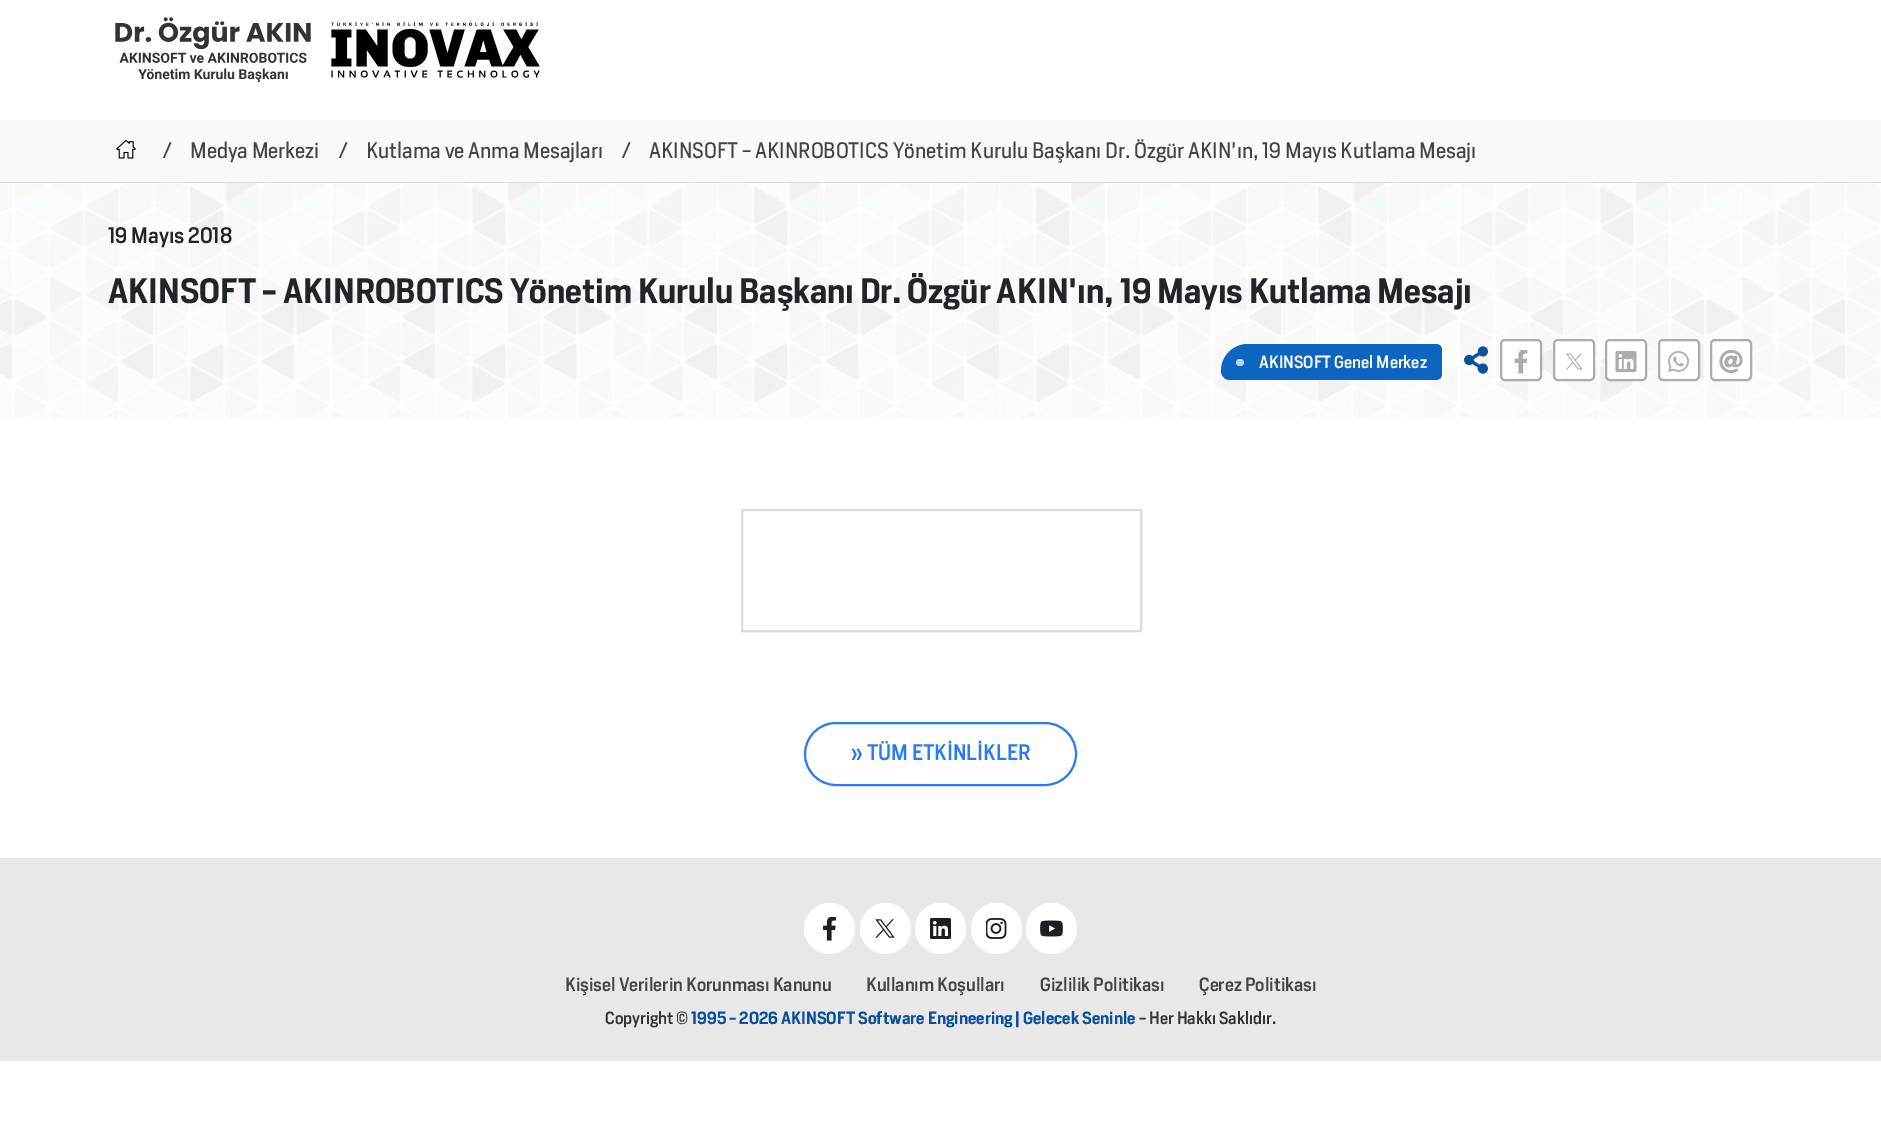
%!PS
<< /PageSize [1881 1124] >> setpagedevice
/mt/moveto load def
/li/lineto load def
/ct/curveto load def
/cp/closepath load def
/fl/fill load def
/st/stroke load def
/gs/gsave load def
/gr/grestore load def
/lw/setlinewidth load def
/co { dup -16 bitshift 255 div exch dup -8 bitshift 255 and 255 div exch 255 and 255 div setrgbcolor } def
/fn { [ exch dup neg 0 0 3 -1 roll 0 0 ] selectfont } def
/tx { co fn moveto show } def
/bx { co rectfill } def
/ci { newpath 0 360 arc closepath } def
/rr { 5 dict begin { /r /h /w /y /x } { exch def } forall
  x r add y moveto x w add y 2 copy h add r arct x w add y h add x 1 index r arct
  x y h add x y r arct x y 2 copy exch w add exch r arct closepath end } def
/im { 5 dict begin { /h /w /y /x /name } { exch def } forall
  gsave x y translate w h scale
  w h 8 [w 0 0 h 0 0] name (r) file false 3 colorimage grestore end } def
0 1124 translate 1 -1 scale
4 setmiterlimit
0 0 1881 1124 16#FFFFFF bx
(media/1.raw) 115 17 196 66 im
(media/2.raw) 331 21 209 57 im
0 120 1881 62 16#F9F9FA bx
0 182 1881 1 16#DDDDDD bx
(media/3.raw) 116 140 20 19 im
(media/4.raw) 0 183 1881 236 im
16#0C65C1 co
1248 344 mt 1436 344 li 1439.5 344 1442 346.5 1442 350 ct 1442 374 li 1442 377.5 1439.5 380 1436 380 ct 1230 380 li 1225 380 1221 376 1221 371 ct 1221 356 1233 344 1248 344 ct cp fl
16#B6D1EC co
1236 359 8 7 3.5 rr fl
(media/5.raw) 1464 346 24 28 im
16#FFFFFF co
1501 340 40 40 4 rr gs fl gr
16#ACACAC co
2 lw
st
(media/6.raw) 1514 350 14 24 im
16#FFFFFF co
1554 340 40 40 4 rr gs fl gr
16#ACACAC co
st
(media/7.raw) 1565 353 18 17 im
16#FFFFFF co
1606 340 40 40 4 rr gs fl gr
16#ACACAC co
st
(media/8.raw) 1615 351 22 21 im
16#FFFFFF co
1659 340 40 40 4 rr gs fl gr
16#ACACAC co
st
(media/9.raw) 1668 351 21 21 im
16#FFFFFF co
1711 340 40 40 4 rr gs fl gr
16#ACACAC co
st
(media/10.raw) 1719 350 24 24 im
16#DDDDDD co
742 510 399 121 rectstroke
16#2A7AF3 co
805 723 271 62 31 rr st
0 858 1881 203 16#E8E8E8 bx
16#FFFFFF co
829.5 928.5 25.5 ci fl
(media/11.raw) 823 917 13 24 im
885.5 928.5 25.5 ci fl
(media/12.raw) 875 919 20 19 im
940.5 928.5 25.5 ci fl
(media/13.raw) 930 918 21 21 im
996.5 928.5 25.5 ci fl
(media/14.raw) 986 918 21 21 im
1051.5 928.5 25.5 ci fl
(media/15.raw) 1040 920 23 17 im
(/) 163 158 /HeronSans-Regular 21 16#444444 tx
(Medya Merkezi) 190 158 /HeronSans-Regular 21 16#444444 tx
(/) 339 158 /HeronSans-Regular 21 16#444444 tx
(Kutlama ve Anma Mesajları) 366 158 /HeronSans-Regular 21 16#444444 tx
(/) 622 158 /HeronSans-Regular 21 16#444444 tx
(AKINSOFT - AKINROBOTICS Yönetim Kurulu Başkanı Dr. Özgür AKIN'ın, 19 Mayıs Kutlama Mesajı) 649 158 /HeronSans-Regular 21 16#444444 tx
(19 Mayıs 2018) 108 243 /HeronSans-Medium 21 16#212529 tx
(AKINSOFT - AKINROBOTICS Yönetim Kurulu Başkanı Dr. Özgür AKIN'ın, 19 Mayıs Kutlama Mesajı) 108 303 /HeronSans-SemiBold 33 16#212529 tx
(AKINSOFT Genel Merkez) 1259 368 /HeronSans-Medium 16.5 16#FFFFFF tx
(» TÜM ETKİNLİKLER) 851 760 /HeronSans-Medium 21 16#2A7AF3 tx
(Kişisel Verilerin Korunması Kanunu) 565 991 /HeronSans-Medium 18 16#444444 tx
(Kullanım Koşulları) 866 991 /HeronSans-Medium 18 16#444444 tx
(Gizlilik Politikası) 1040 991 /HeronSans-Medium 18 16#444444 tx
(Çerez Politikası) 1199 991 /HeronSans-Medium 18 16#444444 tx
(Copyright ©) 605 1024 /HeronSans-Medium 16.5 16#333333 tx
(1995 - 2026 AKINSOFT Software Engineering | Gelecek Seninle) 691 1024 /HeronSans-SemiBold 16.5 16#084F9E tx
(- Her Hakkı Saklıdır.) 1139 1024 /HeronSans-Medium 16.5 16#333333 tx
showpage
